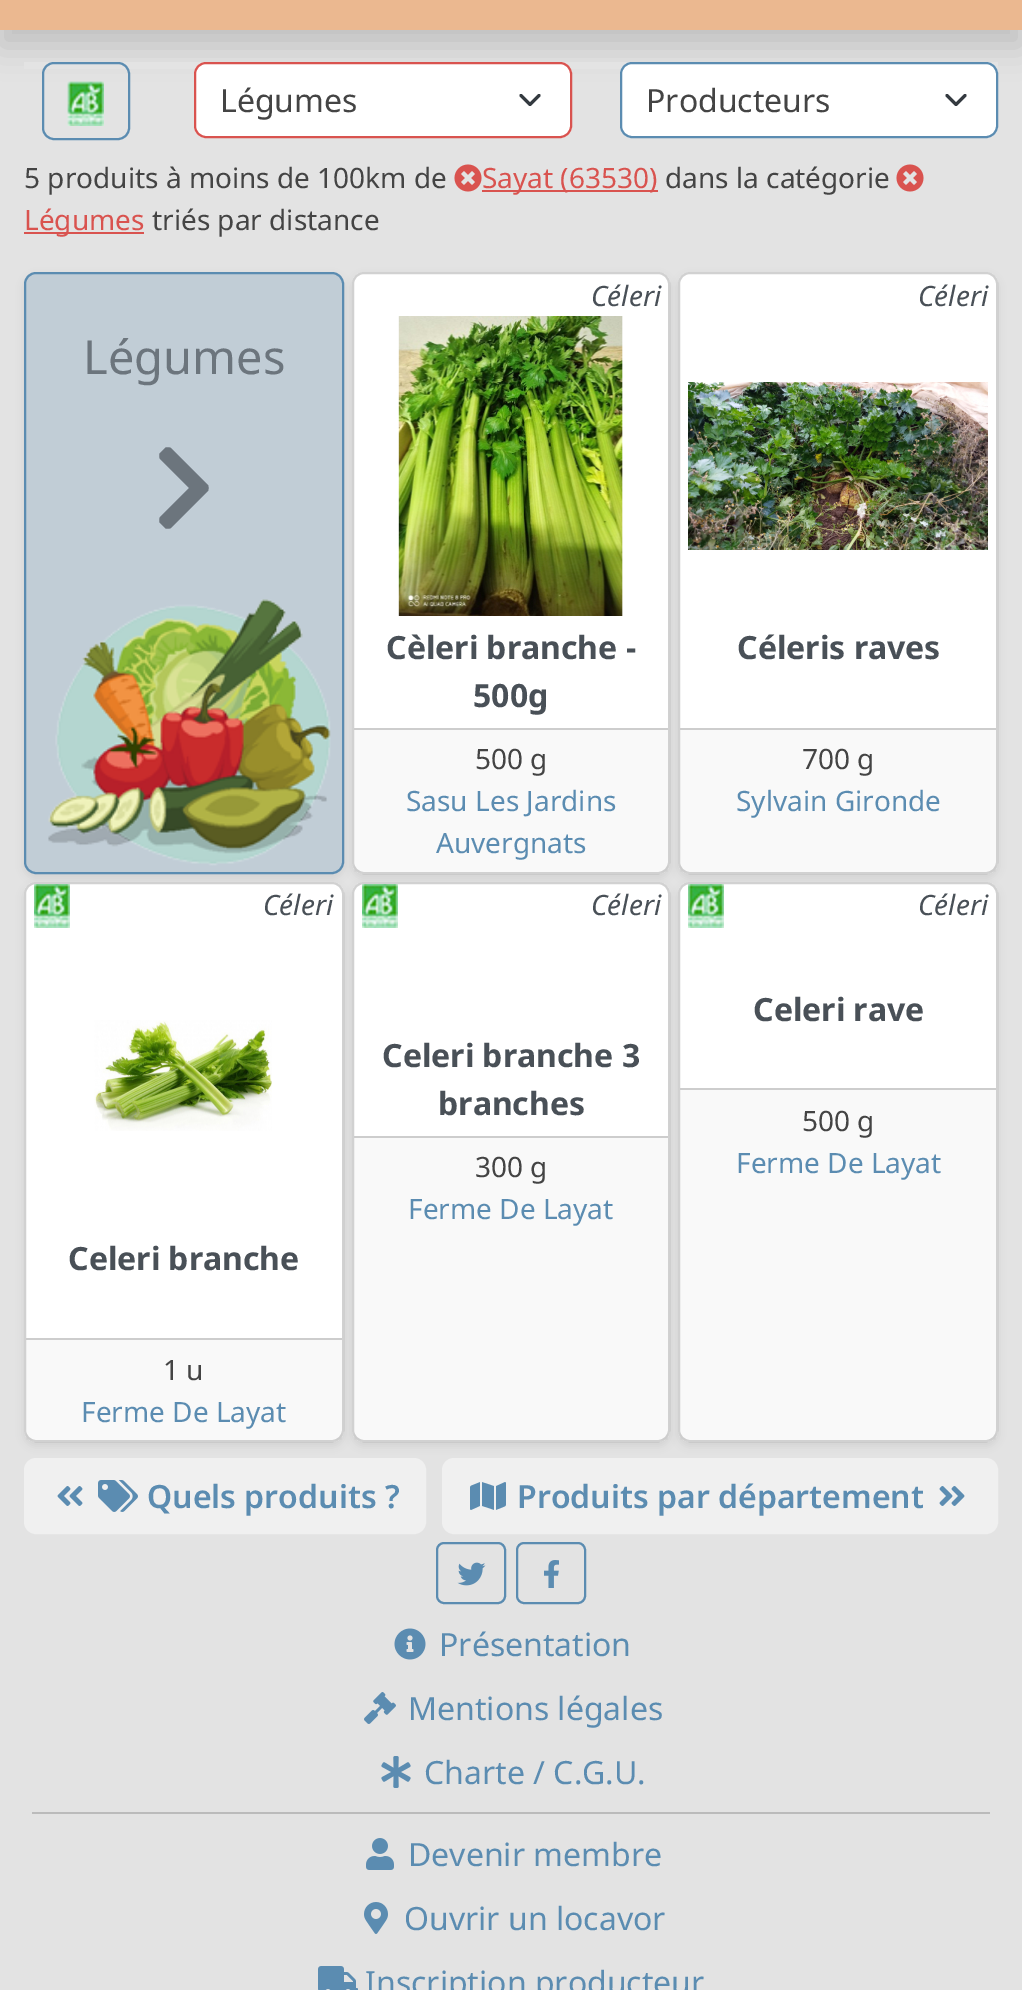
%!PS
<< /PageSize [1022 1990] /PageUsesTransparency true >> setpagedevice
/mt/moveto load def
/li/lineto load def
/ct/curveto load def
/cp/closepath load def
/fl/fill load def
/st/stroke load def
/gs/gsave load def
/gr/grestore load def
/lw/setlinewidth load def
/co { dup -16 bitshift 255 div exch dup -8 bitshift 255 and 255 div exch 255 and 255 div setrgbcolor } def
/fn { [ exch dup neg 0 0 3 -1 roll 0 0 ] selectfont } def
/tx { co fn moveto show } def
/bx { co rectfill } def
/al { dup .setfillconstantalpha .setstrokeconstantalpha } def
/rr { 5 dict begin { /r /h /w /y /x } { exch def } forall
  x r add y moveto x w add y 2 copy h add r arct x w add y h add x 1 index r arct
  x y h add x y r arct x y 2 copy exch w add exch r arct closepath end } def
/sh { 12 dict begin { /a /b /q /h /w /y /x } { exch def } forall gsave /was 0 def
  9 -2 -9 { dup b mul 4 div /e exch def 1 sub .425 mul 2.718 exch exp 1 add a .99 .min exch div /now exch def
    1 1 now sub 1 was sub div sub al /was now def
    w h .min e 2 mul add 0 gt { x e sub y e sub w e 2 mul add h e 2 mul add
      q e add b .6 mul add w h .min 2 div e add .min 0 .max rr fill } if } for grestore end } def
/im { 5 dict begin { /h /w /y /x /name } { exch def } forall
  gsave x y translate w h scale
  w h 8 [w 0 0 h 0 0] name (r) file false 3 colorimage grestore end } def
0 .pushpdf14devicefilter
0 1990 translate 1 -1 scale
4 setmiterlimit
0 0 1022 1990 16#E3E3E3 bx
16#000000 co
0 -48 1022 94 0 16 .15 sh
0 0 1022 30 16#EBB890 bx
24 62 974 7 16#E3E3E3 bx
16#5B8CB1 co
2 lw
43 63 86 76 11 rr st
(media/1.raw) 67 81 37 45 im
16#FFFFFF co
194 62 378 76 12 rr fl
16#343A40 co
3 lw
1 setlinecap
1 setlinejoin
521 95.5 mt 530 104.5 li 539 95.5 li st
16#D9534F co
2 lw
0 setlinecap
0 setlinejoin
195 63 376 74 11 rr st
16#FFFFFF co
620 62 378 76 12 rr fl
16#343A40 co
3 lw
1 setlinecap
1 setlinejoin
947 95.5 mt 956 104.5 li 965 95.5 li st
16#5B8CB1 co
2 lw
0 setlinecap
0 setlinejoin
621 63 376 74 11 rr st
(media/2.raw) 454 164 28 28 im
482 190 176 2 16#D9534F bx
(media/2.raw) 896 164 28 28 im
24 232 120 2 16#D9534F bx
gs
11 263 mt 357 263 li 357 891 li 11 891 li cp 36 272 mt 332 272 li 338.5 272 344 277.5 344 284 ct 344 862 li 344 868.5 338.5 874 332 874 ct 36 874 li 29.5 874 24 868.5 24 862 ct 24 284 li 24 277.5 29.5 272 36 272 ct cp eoclip newpath
16#000000 co
24 276 320 602 12 4 .07 sh
gr
0.25 al
16#5B8CB1 co
25 273 318 600 11 rr fl
1 al
25 273 318 600 11 rr st
16#6C757D co
208 491 mt 171 528 li 169 529 166 529 165 528 ct 160 523 li 159 522 159 519 160 517 ct 189 488 li 160 459 li 159 457 159 454 160 453 ct 165 448 li 166 447 169 447 171 448 ct 208 485 li 209 487 209 489 208 491 ct cp fl
(media/3.raw) 48 599 283 267 im
16#000000 co
352 276 318 602 12 4 .07 sh
16#FFFFFF co
352 272 318 602 12 rr fl
0.18 al
16#000000 co
353 273 316 600 11 rr st
1 al
(media/4.raw) 398 316 225 300 im
0.03 al
354 730 314 142 16#444444 bx
1 al
354 728 314 2 16#CDCDCD bx
16#000000 co
678 276 320 602 12 4 .07 sh
16#FFFFFF co
678 272 320 602 12 rr fl
0.18 al
16#000000 co
679 273 318 600 11 rr st
1 al
(media/5.raw) 688 382 300 168 im
0.03 al
680 730 316 142 16#444444 bx
1 al
680 728 316 2 16#CDCDCD bx
16#F0F0F0 co
25 1459 400 74 11 rr gs fl gr
st
16#000000 co
24 886 320 560 12 4 .07 sh
16#FFFFFF co
24 882 320 560 12 rr fl
0.18 al
16#000000 co
25 883 318 558 11 rr st
1 al
(media/6.raw) 34 884 36 44 im
(media/7.raw) 94 1020 178 111 im
0.03 al
26 1340 316 100 16#444444 bx
1 al
26 1338 316 2 16#CDCDCD bx
16#F0F0F0 co
443 1459 554 74 11 rr gs fl gr
st
16#000000 co
352 886 318 560 12 4 .07 sh
16#FFFFFF co
352 882 318 560 12 rr fl
0.18 al
16#000000 co
353 883 316 558 11 rr st
1 al
(media/6.raw) 362 884 36 44 im
0.03 al
354 1138 314 302 16#444444 bx
1 al
354 1136 314 2 16#CDCDCD bx
16#000000 co
678 886 320 560 12 4 .07 sh
16#FFFFFF co
678 882 320 560 12 rr fl
0.18 al
16#000000 co
679 883 318 558 11 rr st
1 al
(media/6.raw) 688 884 36 44 im
0.03 al
680 1090 316 350 16#444444 bx
1 al
680 1088 316 2 16#CDCDCD bx
(media/8.raw) 57 1486 26 20 im
(media/9.raw) 98 1480 40 32 im
(media/10.raw) 470 1482 36 28 im
(media/11.raw) 939 1486 26 20 im
16#5B8CB1 co
437 1543 68 60 7 rr st
(media/12.raw) 457 1562 29 24 im
517 1543 68 60 7 rr st
(media/13.raw) 544 1560 15 28 im
(media/14.raw) 394 1628 32 32 im
(media/15.raw) 364 1692 32 32 im
(media/16.raw) 381 1756 30 32 im
32 1812 958 2 16#BBBBBB bx
(media/17.raw) 366 1838 28 32 im
(media/18.raw) 364 1902 24 32 im
(media/19.raw) 318 1966 40 24 im
(Légumes) 220 112 /NotoSans-Regular 32 16#444444 tx
(Producteurs) 646 112 /NotoSans-Regular 32 16#444444 tx
(5 produits à moins de 100km de) 24 188 /NotoSans-Regular 28 16#444444 tx
(Sayat \(63530\)) 482 188 /NotoSans-Regular 28 16#D9534F tx
(dans la catégorie) 665 188 /NotoSans-Regular 28 16#444444 tx
(Légumes) 24 230 /NotoSans-Regular 28 16#D9534F tx
(triés par distance) 152 230 /NotoSans-Regular 28 16#444444 tx
(Légumes) 83 374 /NotoSans-Regular 47 16#6C757D tx
(Céleri) 591 306 /NotoSans-Italic 28 16#495057 tx
(Cèleri branche -) 386 659 /NotoSans-Bold 32 16#495057 tx
(500g) 473 707 /NotoSans-Bold 32 16#495057 tx
(500 g) 475 769 /NotoSans-Regular 28 16#444444 tx
(Sasu Les Jardins) 406 811 /NotoSans-Regular 28 16#5B8CB1 tx
(Auvergnats) 436 853 /NotoSans-Regular 28 16#5B8CB1 tx
(Céleri) 918 306 /NotoSans-Italic 28 16#495057 tx
(Céleris raves) 737 659 /NotoSans-Bold 32 16#495057 tx
(700 g) 802 769 /NotoSans-Regular 28 16#444444 tx
(Sylvain Gironde) 736 811 /NotoSans-Regular 28 16#5B8CB1 tx
(Céleri) 263 915 /NotoSans-Italic 28 16#495057 tx
(Celeri branche) 68 1270 /NotoSans-Bold 32 16#495057 tx
(1 u) 163 1380 /NotoSans-Regular 28 16#444444 tx
(Ferme De Layat) 81 1422 /NotoSans-Regular 28 16#5B8CB1 tx
(Céleri) 591 915 /NotoSans-Italic 28 16#495057 tx
(Celeri branche 3) 382 1067 /NotoSans-Bold 32 16#495057 tx
(branches) 438 1115 /NotoSans-Bold 32 16#495057 tx
(300 g) 475 1177 /NotoSans-Regular 28 16#444444 tx
(Ferme De Layat) 408 1219 /NotoSans-Regular 28 16#5B8CB1 tx
(Céleri) 918 915 /NotoSans-Italic 28 16#495057 tx
(Celeri rave) 753 1021 /NotoSans-Bold 32 16#495057 tx
(500 g) 802 1131 /NotoSans-Regular 28 16#444444 tx
(Ferme De Layat) 736 1173 /NotoSans-Regular 28 16#5B8CB1 tx
(Quels produits ?) 147 1508 /NotoSans-SemiBold 32 16#5B8CB1 tx
(Produits par département) 517 1508 /NotoSans-SemiBold 32 16#5B8CB1 tx
(Présentation) 439 1656 /NotoSans-Regular 32 16#5B8CB1 tx
(Mentions légales) 408 1720 /NotoSans-Regular 32 16#5B8CB1 tx
(Charte / C.G.U.) 424 1784 /NotoSans-Regular 32 16#5B8CB1 tx
(Devenir membre) 408 1866 /NotoSans-Regular 32 16#5B8CB1 tx
(Ouvrir un locavor) 404 1930 /NotoSans-Regular 32 16#5B8CB1 tx
(Inscription producteur) 365 1994 /NotoSans-Regular 32 16#5B8CB1 tx
.poppdf14devicefilter showpage
